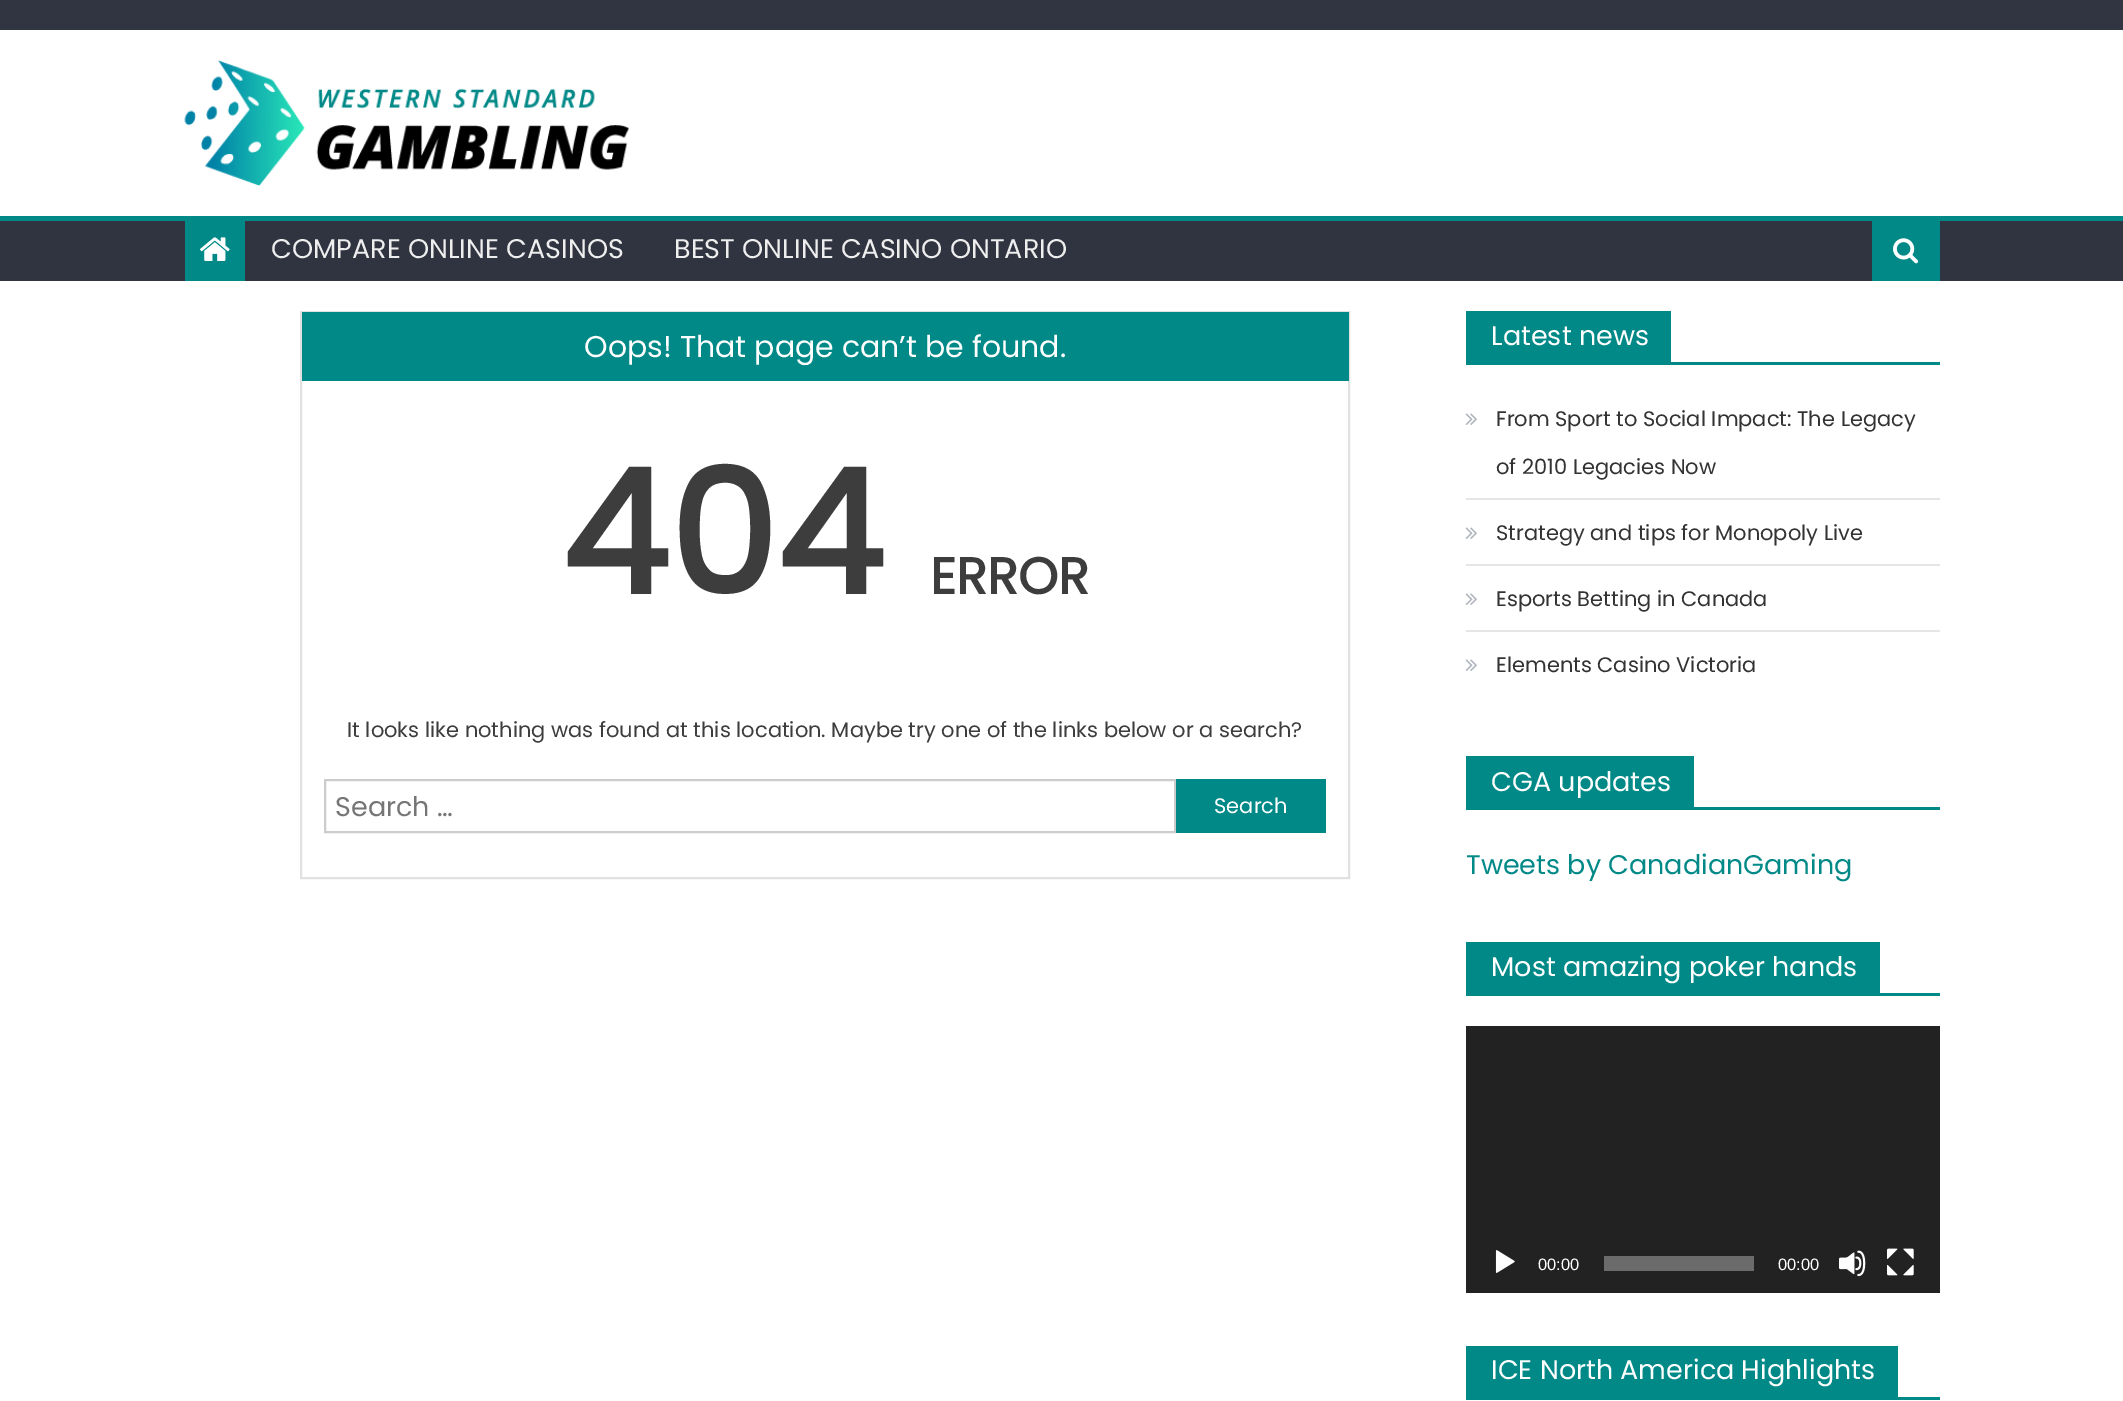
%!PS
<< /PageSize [2123 1401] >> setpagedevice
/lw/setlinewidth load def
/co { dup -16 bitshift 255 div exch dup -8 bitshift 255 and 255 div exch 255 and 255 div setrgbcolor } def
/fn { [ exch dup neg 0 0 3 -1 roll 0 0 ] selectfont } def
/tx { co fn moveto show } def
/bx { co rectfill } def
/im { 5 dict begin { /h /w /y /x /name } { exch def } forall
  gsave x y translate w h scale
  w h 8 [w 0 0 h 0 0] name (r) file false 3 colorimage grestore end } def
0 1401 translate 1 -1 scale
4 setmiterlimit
0 0 2123 1401 16#FFFFFF bx
0 0 2123 30 16#313541 bx
(media/1.raw) 184 60 445 126 im
0 221 2123 60 16#303440 bx
0 216 2123 5 16#008987 bx
185 221 60 60 16#008987 bx
(media/2.raw) 200 237 30 24 im
1872 221 68 60 16#008987 bx
(media/3.raw) 1893 238 26 26 im
16#E1E1E1 co
2 lw
301 312 1048 566 rectstroke
302 312 1047 69 16#008987 bx
16#CCCCCC co
325 780 850 52 rectstroke
1176 779 150 54 16#008987 bx
1466 362 474 3 16#008987 bx
1466 311 3 54 16#008987 bx
1469 311 202 51 16#008987 bx
1466 498 474 2 16#E6E6E6 bx
(media/4.raw) 1465 413 12 12 im
1466 564 474 2 16#E6E6E6 bx
(media/4.raw) 1465 527 12 12 im
1466 630 474 2 16#E6E6E6 bx
(media/4.raw) 1465 593 12 12 im
(media/4.raw) 1465 659 12 12 im
1466 807 474 3 16#008987 bx
1466 756 3 54 16#008987 bx
1469 756 225 51 16#008987 bx
1466 993 474 3 16#008987 bx
1466 942 3 54 16#008987 bx
1469 942 411 51 16#008987 bx
1466 1026 474 267 16#222222 bx
(media/5.raw) 1495 1250 20 23 im
1604 1256 150 15 16#6B6B6B bx
(media/6.raw) 1839 1250 27 27 im
(media/7.raw) 1887 1248 27 28 im
1466 1397 474 3 16#008987 bx
1466 1346 3 54 16#008987 bx
1469 1346 429 51 16#008987 bx
(COMPARE ONLINE CASINOS) 271 258 /Poppins-Regular 27 16#EEEEEE tx
(BEST ONLINE CASINO ONTARIO) 674 258 /Poppins-Regular 27 16#EEEEEE tx
(Oops! That page can’t be found.) 584 357 /Poppins-Regular 30 16#FFFFFF tx
(404) 561 594 /Poppins-Bold 171 16#3D3D3D tx
(ERROR) 930 594 /Poppins-Bold 51 16#3D3D3D tx
(It looks like nothing was found at this location. Maybe try one of the links below or a search?) 347 737 /Poppins-Regular 21 16#3D3D3D tx
(Search …) 335 816 /Poppins-Regular 27 16#757575 tx
(Search) 1214 813 /Poppins-Regular 21 16#FFFFFF tx
(Latest news) 1491 345 /Poppins-Regular 27 16#FFFFFF tx
(From Sport to Social Impact: The Legacy) 1496 426 /Poppins-Regular 21 16#333333 tx
(of 2010 Legacies Now) 1496 474 /Poppins-Regular 21 16#333333 tx
(Strategy and tips for Monopoly Live) 1496 540 /Poppins-Regular 21 16#333333 tx
(Esports Betting in Canada) 1496 606 /Poppins-Regular 21 16#333333 tx
(Elements Casino Victoria) 1496 672 /Poppins-Regular 21 16#333333 tx
(CGA updates) 1491 791 /Poppins-Regular 27 16#FFFFFF tx
(Tweets by CanadianGaming) 1466 874 /Poppins-Regular 27 16#008987 tx
(Most amazing poker hands) 1491 976 /Poppins-Regular 27 16#FFFFFF tx
(00:00) 1538 1270 /LiberationSans-Regular 16.5 16#FFFFFF tx
(00:00) 1778 1270 /LiberationSans-Regular 16.5 16#FFFFFF tx
(ICE North America Highlights) 1491 1379 /Poppins-Regular 27 16#FFFFFF tx
showpage
